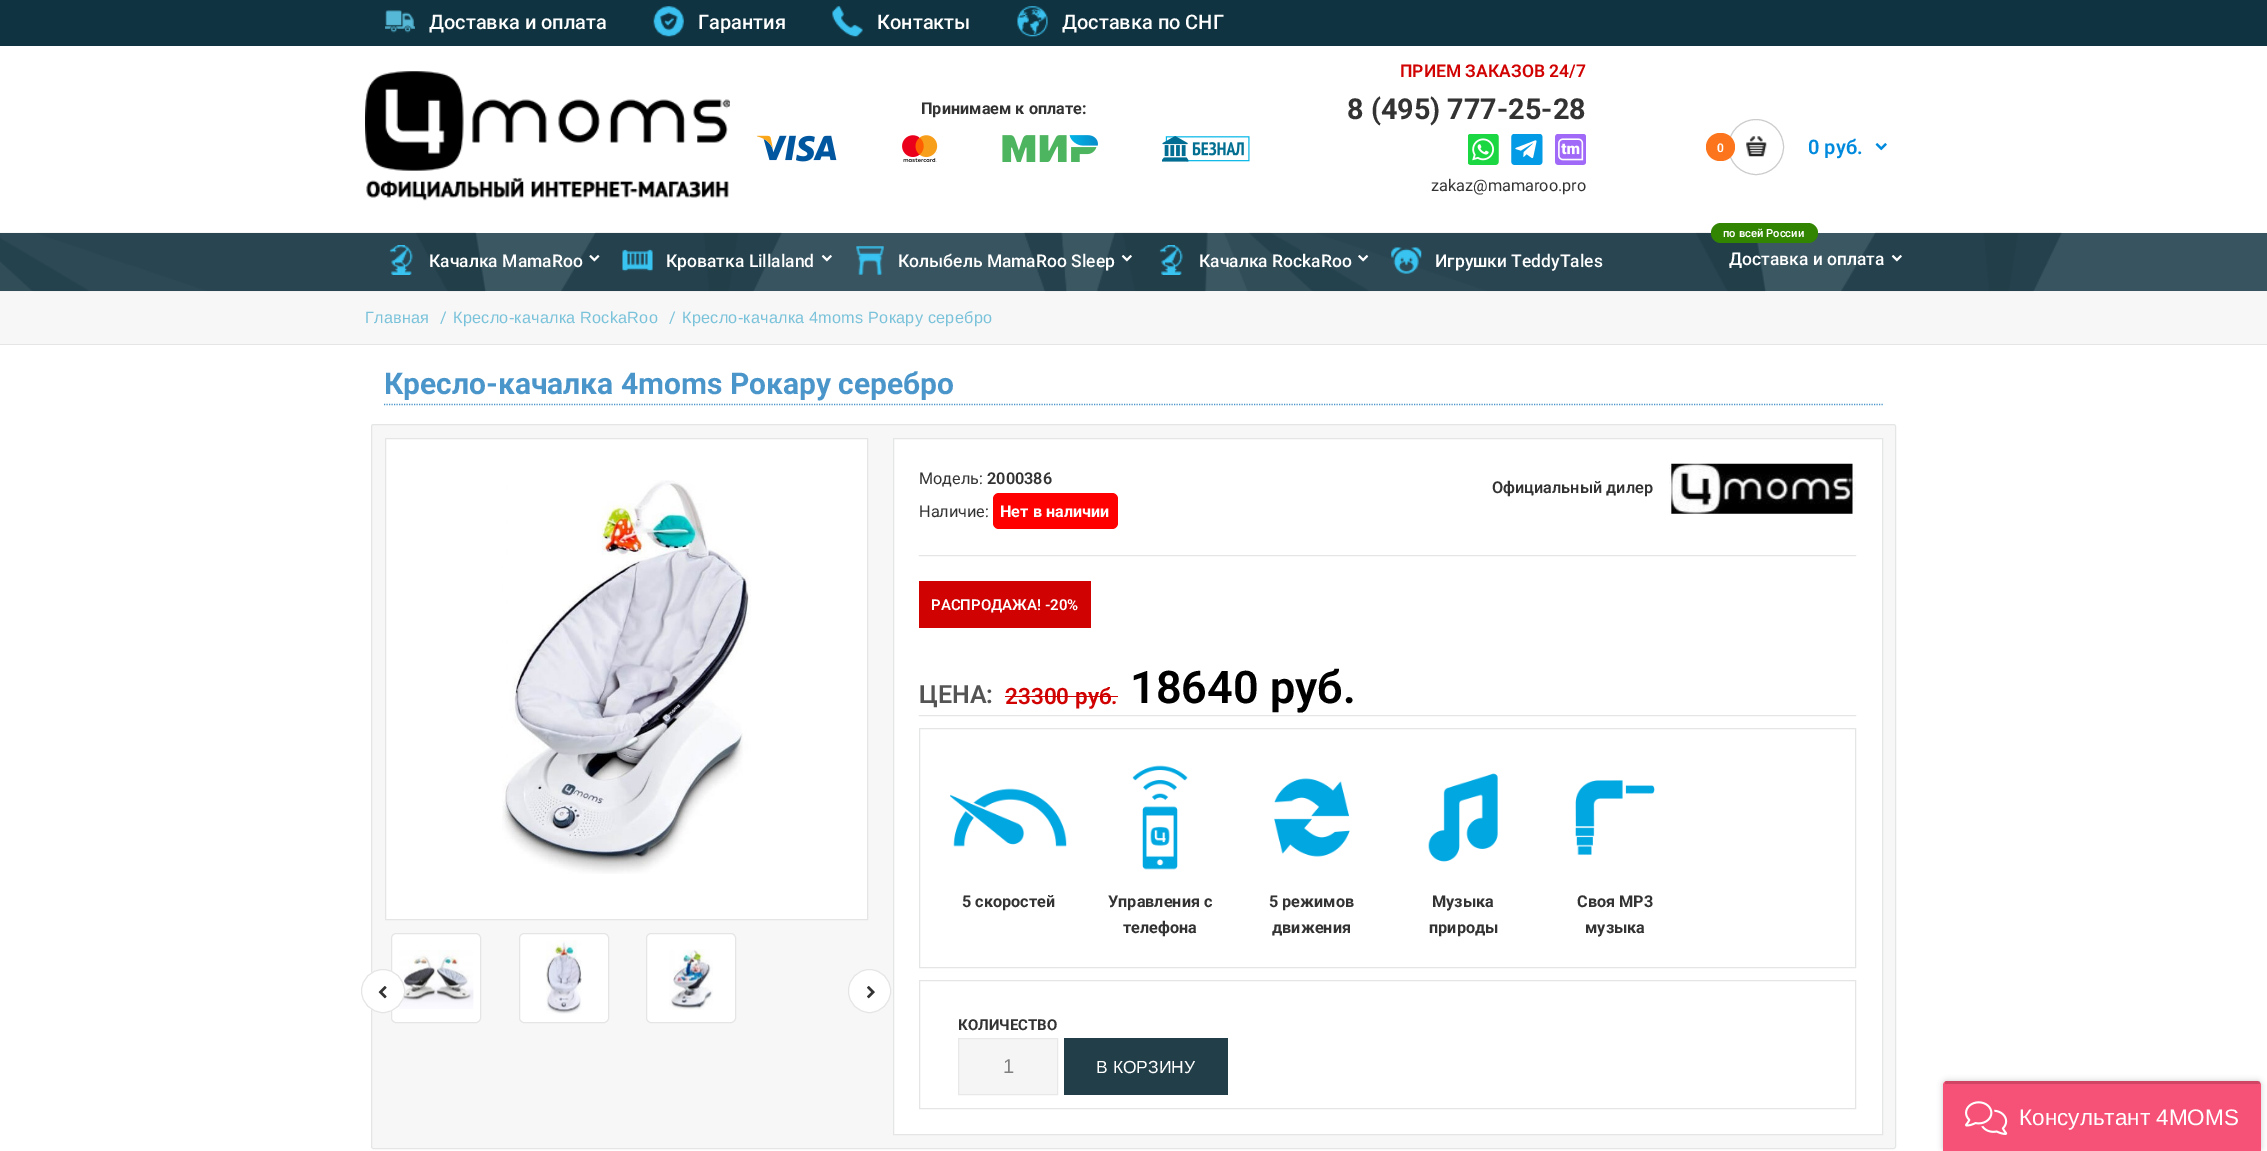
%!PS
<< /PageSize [2267 1151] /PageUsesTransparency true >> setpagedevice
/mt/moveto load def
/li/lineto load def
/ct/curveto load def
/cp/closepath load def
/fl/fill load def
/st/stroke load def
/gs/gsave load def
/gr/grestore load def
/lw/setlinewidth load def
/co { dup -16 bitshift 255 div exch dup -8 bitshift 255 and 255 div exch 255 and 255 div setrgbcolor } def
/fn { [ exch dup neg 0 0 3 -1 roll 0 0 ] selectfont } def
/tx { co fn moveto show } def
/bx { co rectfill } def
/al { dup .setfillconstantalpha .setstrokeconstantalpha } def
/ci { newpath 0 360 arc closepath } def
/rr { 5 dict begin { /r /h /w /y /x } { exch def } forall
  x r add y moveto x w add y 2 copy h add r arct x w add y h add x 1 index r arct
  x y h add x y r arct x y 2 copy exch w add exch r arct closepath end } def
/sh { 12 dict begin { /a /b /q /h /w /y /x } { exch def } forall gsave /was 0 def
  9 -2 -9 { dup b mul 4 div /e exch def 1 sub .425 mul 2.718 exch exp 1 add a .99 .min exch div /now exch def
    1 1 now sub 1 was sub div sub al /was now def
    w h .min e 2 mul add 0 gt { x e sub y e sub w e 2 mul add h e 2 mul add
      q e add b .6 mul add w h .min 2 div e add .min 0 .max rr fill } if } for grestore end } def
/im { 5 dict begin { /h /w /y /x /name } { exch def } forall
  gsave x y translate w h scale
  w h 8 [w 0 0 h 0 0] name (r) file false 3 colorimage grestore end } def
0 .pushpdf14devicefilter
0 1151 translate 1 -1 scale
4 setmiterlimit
0 0 2267 1151 16#FFFFFF bx
0 0 2267 46 16#0F3340 bx
(media/1.raw) 385 10 30 23 im
(media/2.raw) 653 6 31 31 im
(media/3.raw) 832 6 31 31 im
(media/4.raw) 1017 6 31 31 im
(media/5.raw) 365 71 365 130 im
(media/6.raw) 757 135 80 27 im
(media/7.raw) 902 135 36 27 im
(media/8.raw) 1002 135 96 27 im
(media/9.raw) 1162 136 88 26 im
(media/10.raw) 1468 134 31 31 im
(media/11.raw) 1511 134 32 31 im
(media/12.raw) 1555 134 31 31 im
16#CCCCCC co
1756 147 27.5 ci st
16#FC741B co
1706 133 29 28 14 rr fl
(media/13.raw) 1746 136 21 21 im
(media/14.raw) 1875 143 12 8 im
0 233 2267 58 16#0F3340 bx
0 291 2267 53 16#F7F7F7 bx
(media/15.raw) 0 232 2267 60 im
(media/16.raw) 389 245 24 30 im
(media/17.raw) 589 255 11 7 im
(media/18.raw) 622 249 31 23 im
(media/19.raw) 821 255 11 7 im
(media/20.raw) 856 246 28 29 im
(media/21.raw) 1121 255 11 7 im
(media/22.raw) 1159 245 24 30 im
(media/23.raw) 1358 255 11 7 im
(media/24.raw) 1391 247 31 27 im
16#318500 co
1711 223 107 20 10 rr fl
(media/25.raw) 1891 255 11 7 im
0 344 2267 1 16#E4E5E5 bx
16#4A95CA co
1.2 lw
[1.25 1.25] 0 setdash
384 404.5 mt 1884 404.5 li st
16#F7F7F7 co
371.5 424.5 1524 724 2 rr gs fl gr
16#E4E5E5 co
1 lw
[] 0 setdash
st
16#FFFFFF co
385.5 438.5 mt 867.5 438.5 li 867.5 919.5 li 385.5 919.5 li cp gs fl gr
16#E5E5E5 co
st
(media/26.raw) 502 480 249 394 im
16#FFFFFF co
391.5 933.5 89 89 4.5 rr gs fl gr
16#E5E5E5 co
st
(media/27.raw) 399 950 75 59 im
16#FFFFFF co
519.5 933.5 89 89 4.5 rr gs fl gr
16#E5E5E5 co
st
(media/28.raw) 546 940 36 74 im
16#FFFFFF co
646.5 933.5 89 89 4.5 rr gs fl gr
16#E5E5E5 co
st
(media/29.raw) 669 949 44 61 im
16#FFFFFF co
383 991 21.5 ci gs fl gr
16#E5E5E5 co
st
(media/30.raw) 378 986 9 13 im
16#FFFFFF co
848.5 969.5 42 43 21 rr gs fl gr
16#E5E5E5 co
st
(media/31.raw) 867 986 8 13 im
16#FFFFFF co
893.5 438.5 mt 1882.5 438.5 li 1882.5 1134.5 li 893.5 1134.5 li cp gs fl gr
16#E4E5E5 co
st
(media/32.raw) 918 555 939 2 im
16#FF0000 co
993 493 125 36 6 rr fl
(media/33.raw) 1669 463 187 51 im
919 581 172 47 16#D00202 bx
1005 696 113 1 16#D00202 bx
(media/32.raw) 918 715 939 2 im
16#E4E5E5 co
919.5 728.5 936 239 rectstroke
(media/34.raw) 950 788 117 59 im
(media/35.raw) 1132 765 56 105 im
(media/36.raw) 1274 778 76 79 im
(media/37.raw) 1428 773 70 89 im
(media/38.raw) 1575 780 80 75 im
16#E5E5E5 co
919.5 980.5 936 128 rectstroke
16#F5F5F5 co
958.5 1038.5 mt 1057.5 1038.5 li 1057.5 1094.5 li 958.5 1094.5 li cp gs fl gr
16#E8E8E8 co
st
1064 1038 164 57 16#213E49 bx
16#000000 co
1943 1081 318 70 4 3 .2 sh
16#F65176 co
1947 1081 mt 2257 1081 li 2259 1081 2261 1083 2261 1085 ct 2261 1151 li 1943 1151 li 1943 1085 li 1943 1083 1945 1081 1947 1081 ct cp fl
0.15 al
1945 1081 315 3 16#000000 bx
1 al
(media/39.raw) 1965 1101 43 34 im
(Доставка и оплата) 429 29 /Roboto-Medium 20 16#FFFFFF tx
(Гарантия) 698 29 /Roboto-Medium 20 16#FFFFFF tx
(Контакты) 877 29 /Roboto-Medium 20 16#FFFFFF tx
(Доставка по СНГ) 1062 29 /Roboto-Medium 20 16#FFFFFF tx
(Принимаем к оплате:) 921 114 /Roboto-Bold 16.25 16#333333 tx
(ПРИЕМ ЗАКАЗОВ 24/7) 1400 77 /Roboto-SemiBold 17.5 16#D00202 tx
(8 \(495\) 777-25-28) 1347 119 /Roboto-Bold 28.75 16#333333 tx
(zakaz@mamaroo.pro) 1431 191 /Roboto-Regular 16.25 16#333333 tx
(0) 1717 152 /Roboto-SemiBold 12 16#FFFFFF tx
(0 руб.) 1808 154 /Roboto-SemiBold 20 16#008ADD tx
(Качалка MamaRoo) 429 267 /Roboto-Medium 17.5 16#FFFFFF tx
(Кроватка Lillaland) 666 267 /Roboto-Medium 17.5 16#FFFFFF tx
(Колыбель MamaRoo Sleep) 898 267 /Roboto-Medium 17.5 16#FFFFFF tx
(Качалка RockaRoo) 1199 267 /Roboto-Medium 17.5 16#FFFFFF tx
(Игрушки TeddyTales) 1435 267 /Roboto-Medium 17.5 16#FFFFFF tx
(по всей России) 1723 237 /Roboto-SemiBold 11.25 16#FFFFFF tx
(Доставка и оплата) 1729 265 /Roboto-Medium 17.5 16#FFFFFF tx
/LiberationSans-Regular 16.25 fn
16#79C2DA co
365 323 mt .25 0 (Главная) ashow
/Roboto-Regular 16.25 fn
440 323 mt .25 0 (/) ashow
/LiberationSans-Regular 16.25 fn
453 323 mt .25 0 (Кресло-качалка RockaRoo) ashow
/Roboto-Regular 16.25 fn
669 323 mt .25 0 (/) ashow
/LiberationSans-Regular 16.25 fn
682 323 mt .25 0 (Кресло-качалка 4moms Рокару серебро) ashow
(Кресло-качалка 4moms Рокару серебро) 384 394 /Roboto-Bold 30 16#4A95CA tx
(Модель:) 919 484 /Roboto-Regular 16.25 16#333333 tx
(2000386) 987 484 /Roboto-SemiBold 16.25 16#333333 tx
(Наличие:) 919 517 /Roboto-Regular 16.25 16#333333 tx
(Нет в наличии) 1000 517 /Roboto-Bold 16.25 16#FFFFFF tx
(Официальный дилер) 1492 493 /Roboto-SemiBold 16.25 16#333333 tx
(РАСПРОДАЖА! -20%) 931 610 /Roboto-SemiBold 15 16#FFFFFF tx
(ЦЕНА:) 919 703 /Roboto-SemiBold 25 16#545454 tx
(23300 руб.) 1005 704 /Roboto-SemiBold 22.5 16#D00202 tx
(18640 руб.) 1130 703 /Roboto-SemiBold 45 16#000000 tx
(5 скоростей) 962 907 /Roboto-Bold 16.25 16#333333 tx
(Управления с) 1108 907 /Roboto-Bold 16.25 16#333333 tx
(телефона) 1123 933 /Roboto-Bold 16.25 16#333333 tx
(5 режимов) 1269 907 /Roboto-Bold 16.25 16#333333 tx
(движения) 1272 933 /Roboto-Bold 16.25 16#333333 tx
(Музыка) 1432 907 /Roboto-Bold 16.25 16#333333 tx
(природы) 1429 933 /Roboto-Bold 16.25 16#333333 tx
(Своя MP3) 1577 907 /Roboto-Bold 16.25 16#333333 tx
(музыка) 1585 933 /Roboto-Bold 16.25 16#333333 tx
(КОЛИЧЕСТВО) 958 1030 /Roboto-Bold 15 16#333333 tx
(1) 1003 1073 /LiberationSans-Regular 20 16#808080 tx
(В КОРЗИНУ) 1096 1073 /LiberationSans-Regular 17.5 16#FFFFFF tx
(Консультант 4MOMS) 2019 1125 /LiberationSans-Regular 22.5 16#FFFFFF tx
.poppdf14devicefilter showpage
